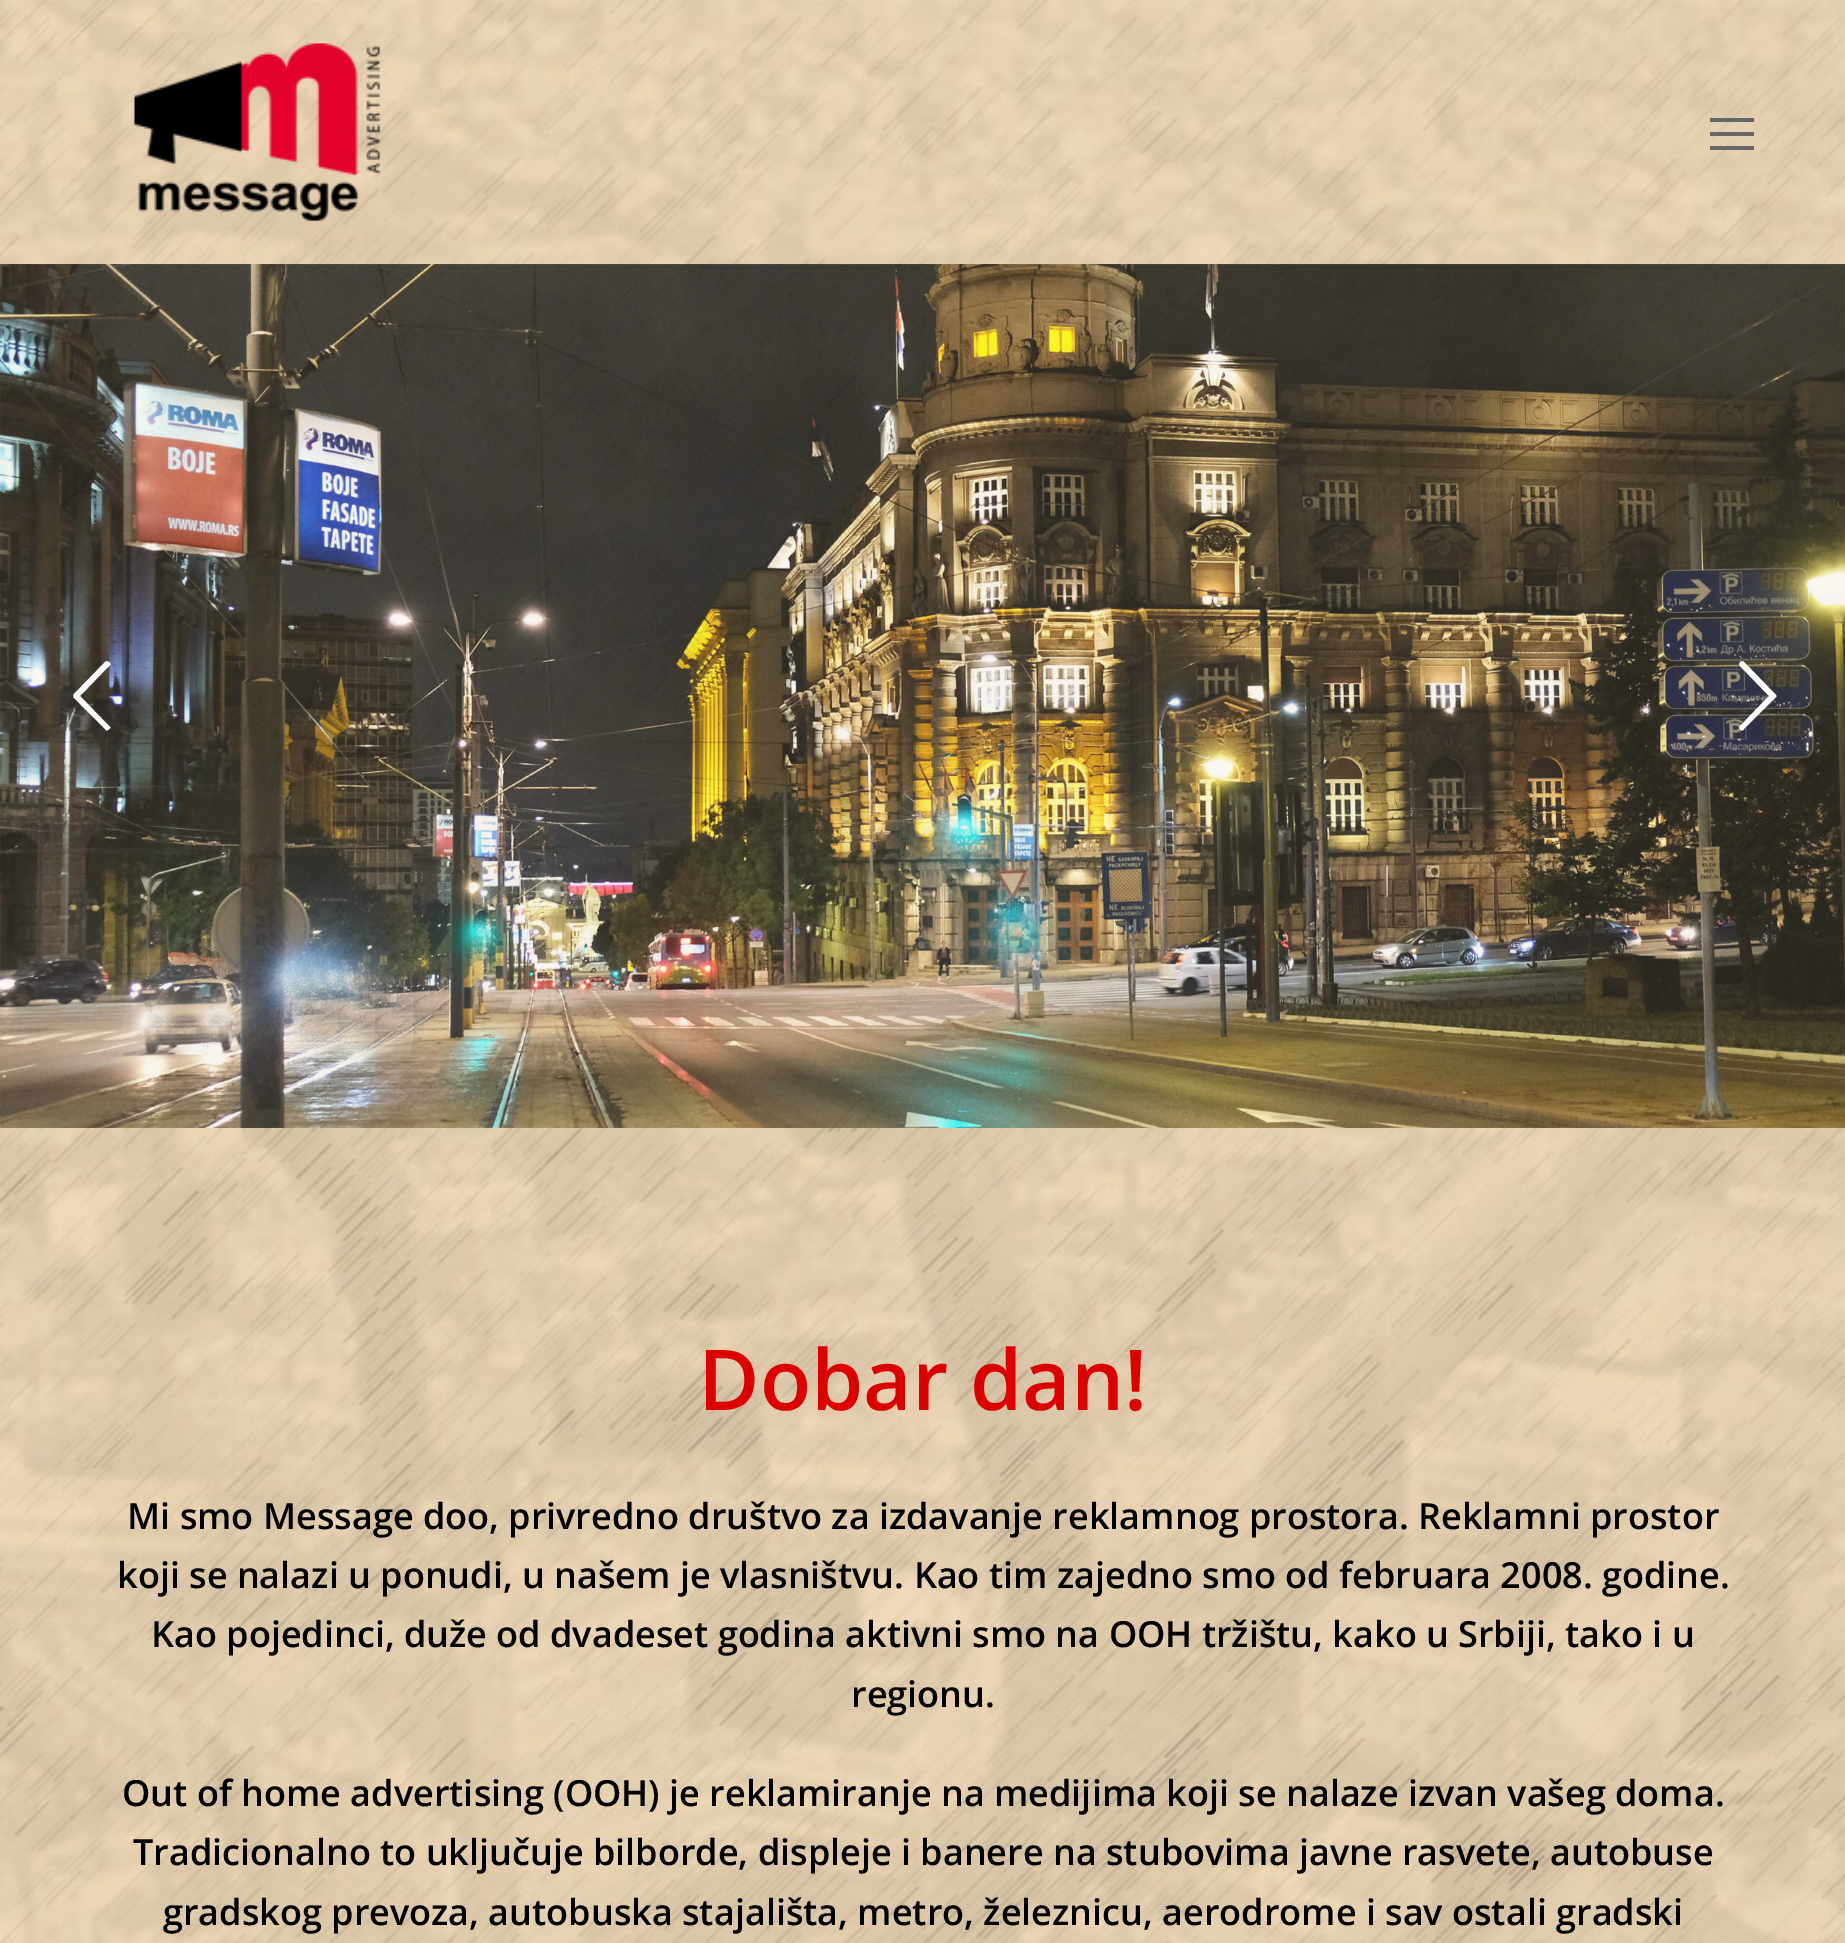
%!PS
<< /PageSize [1845 1943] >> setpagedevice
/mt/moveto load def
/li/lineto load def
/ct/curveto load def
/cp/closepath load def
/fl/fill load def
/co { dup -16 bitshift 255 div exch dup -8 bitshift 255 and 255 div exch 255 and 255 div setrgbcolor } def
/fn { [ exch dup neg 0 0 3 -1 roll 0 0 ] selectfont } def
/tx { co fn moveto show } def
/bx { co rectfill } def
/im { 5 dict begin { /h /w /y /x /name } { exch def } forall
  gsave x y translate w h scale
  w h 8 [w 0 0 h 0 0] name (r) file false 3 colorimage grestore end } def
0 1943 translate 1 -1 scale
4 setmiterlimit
0 0 1845 1943 16#FFFFFF bx
(media/1.raw) 0 0 1845 1943 im
(media/2.raw) 134 43 247 179 im
1710 132 44 4 16#666666 bx
1710 118 44 4 16#666666 bx
1710 146 44 4 16#666666 bx
(media/3.raw) 0 264 1845 864 im
16#FFFFFF co
109 726 mt 111 727 111 728 109 729 ct 108 731 106 731 105 729 ct 74 698 li 73 697 73 695 74 694 ct 105 662 li 106 661 108 661 109 662 ct 111 664 111 665 109 666 ct 80 696 li cp fl
1740 726 mt 1769 696 li 1740 666 li 1739 665 1739 664 1740 662 ct 1741 661 1743 661 1744 662 ct 1775 694 li 1777 695 1777 697 1775 698 ct 1744 729 li 1743 731 1741 731 1740 729 ct 1739 728 1739 727 1740 726 ct cp fl
(Dobar dan!) 698 1410 /OpenSans-SemiBold 84 16#DD0000 tx
(Mi smo Message doo, privredno društvo za izdavanje reklamnog prostora. Reklamni prostor) 127 1529 /OpenSans-SemiBold 36 16#000000 tx
(koji se nalazi u ponudi, u našem je vlasništvu. Kao tim zajedno smo od februara 2008. godine.) 117 1588 /OpenSans-SemiBold 36 16#000000 tx
(Kao pojedinci, duže od dvadeset godina aktivni smo na OOH tržištu, kako u Srbiji, tako i u) 151 1647 /OpenSans-SemiBold 36 16#000000 tx
(regionu.) 851 1707 /OpenSans-SemiBold 36 16#000000 tx
(Out of home advertising \(OOH\) je reklamiranje na medijima koji se nalaze izvan vašeg doma.) 122 1806 /OpenSans-SemiBold 36 16#000000 tx
(Tradicionalno to uključuje bilborde, displeje i banere na stubovima javne rasvete, autobuse) 133 1865 /OpenSans-SemiBold 36 16#000000 tx
(gradskog prevoza, autobuska stajališta, metro, železnicu, aerodrome i sav ostali gradski) 163 1925 /OpenSans-SemiBold 36 16#000000 tx
showpage
